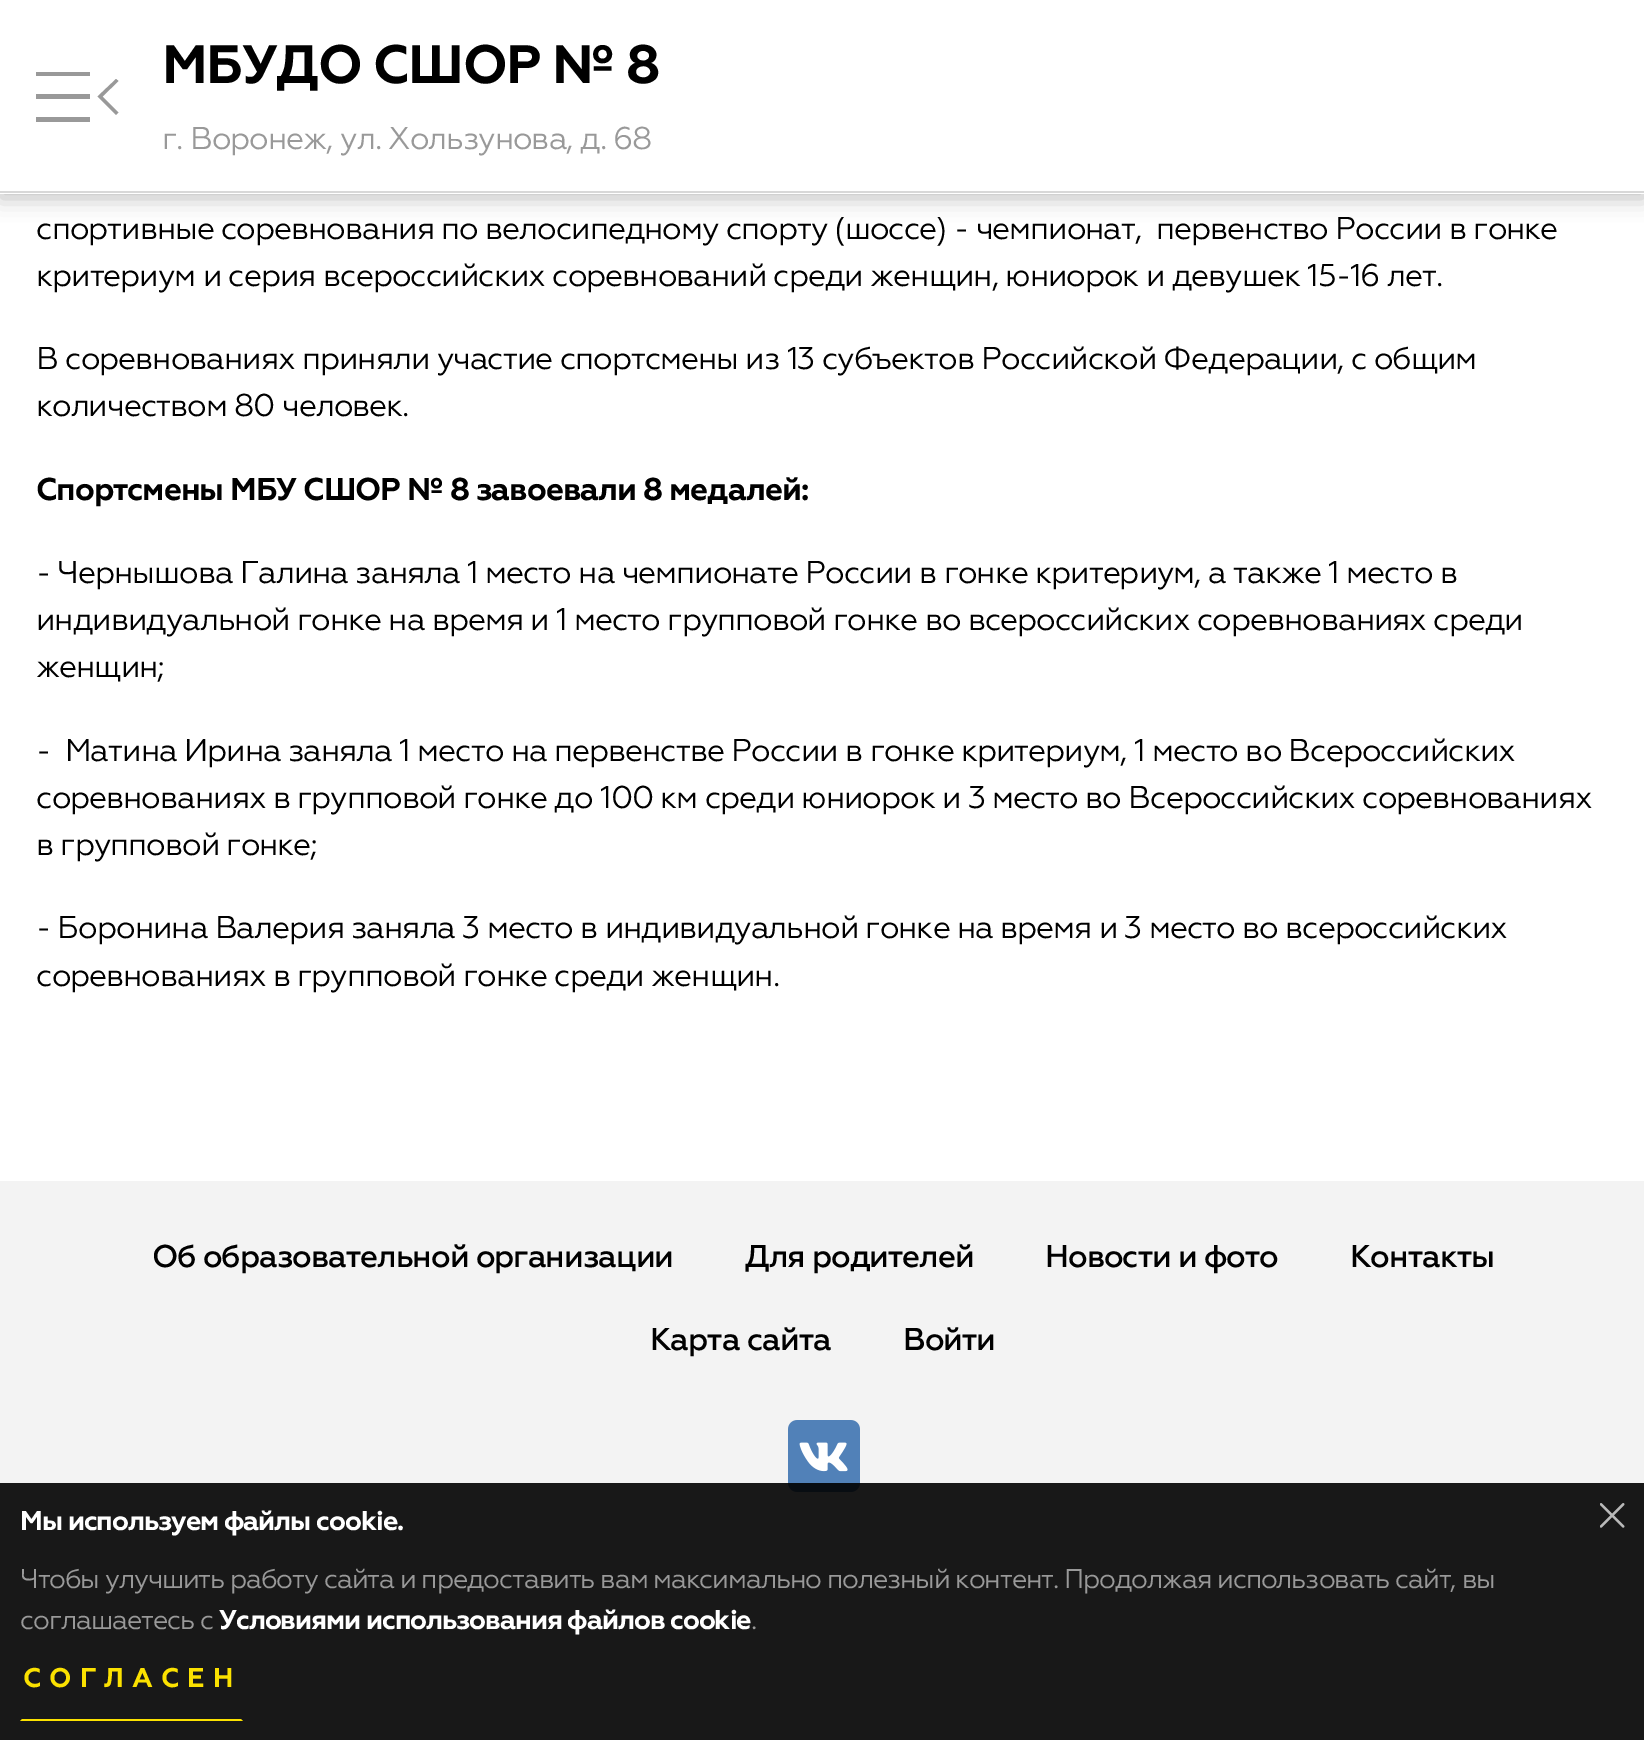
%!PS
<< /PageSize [1644 1740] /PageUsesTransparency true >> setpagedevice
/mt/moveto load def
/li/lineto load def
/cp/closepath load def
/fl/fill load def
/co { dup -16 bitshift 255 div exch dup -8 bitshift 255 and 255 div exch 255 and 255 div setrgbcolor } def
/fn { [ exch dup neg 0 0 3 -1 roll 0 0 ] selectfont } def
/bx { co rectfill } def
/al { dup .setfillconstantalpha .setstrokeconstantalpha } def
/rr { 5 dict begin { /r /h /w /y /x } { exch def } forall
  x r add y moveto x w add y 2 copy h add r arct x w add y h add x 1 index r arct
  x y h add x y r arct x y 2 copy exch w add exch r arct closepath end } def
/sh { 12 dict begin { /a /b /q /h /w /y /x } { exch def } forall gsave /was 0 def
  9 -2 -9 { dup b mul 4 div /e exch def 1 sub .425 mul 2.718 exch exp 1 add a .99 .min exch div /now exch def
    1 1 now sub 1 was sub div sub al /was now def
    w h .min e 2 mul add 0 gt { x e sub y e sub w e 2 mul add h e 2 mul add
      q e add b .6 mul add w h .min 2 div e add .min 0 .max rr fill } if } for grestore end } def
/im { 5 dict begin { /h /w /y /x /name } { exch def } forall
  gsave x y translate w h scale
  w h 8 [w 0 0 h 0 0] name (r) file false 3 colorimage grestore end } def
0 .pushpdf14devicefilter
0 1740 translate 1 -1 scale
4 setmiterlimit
0 0 1644 1740 16#FFFFFF bx
16#000000 co
0 5 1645 193 0 11 .25 sh
0 0 1644 194 16#FFFFFF bx
0 191 1644 2 16#D8D8D8 bx
16#999999 co
36 72 mt 90 72 li 90 76 li 36 76 li cp 36 94 mt 90 94 li 90 99 li 36 99 li cp 36 117 mt 90 117 li 90 122 li 36 122 li cp fl
118.5 81 mt 116 79 li 97.5 96.5 li 116 115 li 118.5 112.5 li 102.5 96.5 li cp fl
0 1181 1644 559 16#F3F3F3 bx
(media/1.raw) 788 1420 72 72 im
0.9 al
0 1483 1644 257 16#000000 bx
1 al
(media/2.raw) 1600 1503 25 25 im
16#FBE100 co
243 1721 mt 20 1721 li 22 1719 li 241 1719 li cp fl
/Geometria-Bold 54 fn
16#000000 co
162 83 mt -1.5 0 (МБУДО СШОР № 8) ashow
/Geometria-Regular 31.5 fn
16#999999 co
162 149 mt -1 0 (г. Воронеж, ул. Хользунова, д. 68) ashow
16#000000 co
36 239 mt -1 0 (спортивные соревнования по велосипедному спорту \(шоссе\) - чемпионат,  первенство России в гонке) ashow
36 286 mt -1 0 (критериум и серия всероссийских соревнований среди женщин, юниорок и девушек 15-16 лет.) ashow
36 369 mt -1 0 (В соревнованиях приняли участие спортсмены из 13 субъектов Российской Федерации, с общим) ashow
36 416 mt -1 0 (количеством 80 человек.) ashow
/Geometria-Bold 31.5 fn
36 500 mt -1 0 (Спортсмены МБУ СШОР № 8 завоевали 8 медалей:) ashow
/Geometria-Regular 31.5 fn
36 583 mt -1 0 (- Чернышова Галина заняла 1 место на чемпионате России в гонке критериум, а также 1 место в) ashow
36 630 mt -1 0 (индивидуальной гонке на время и 1 место групповой гонке во всероссийских соревнованиях среди) ashow
36 677 mt -1 0 (женщин;) ashow
36 761 mt -1 0 (-  Матина Ирина заняла 1 место на первенстве России в гонке критериум, 1 место во Всероссийских) ashow
36 808 mt -1 0 (соревнованиях в групповой гонке до 100 км среди юниорок и 3 место во Всероссийских соревнованиях) ashow
36 855 mt -1 0 (в групповой гонке;) ashow
36 938 mt -1 0 (- Боронина Валерия заняла 3 место в индивидуальной гонке на время и 3 место во всероссийских) ashow
36 986 mt -1 0 (соревнованиях в групповой гонке среди женщин.) ashow
/Geometria-Medium 31.5 fn
152 1267 mt -1 0 (Об образовательной организации) ashow
745 1267 mt -1 0 (Для родителей) ashow
1045 1267 mt -1 0 (Новости и фото) ashow
1350 1267 mt -1 0 (Контакты) ashow
650 1350 mt -1 0 (Карта сайта) ashow
903 1350 mt -1 0 (Войти) ashow
/Geometria-Bold 27 fn
16#FFFFFF co
20 1530 mt -1.12 0 (Мы используем файлы cookie.) ashow
/Geometria-Regular 27 fn
16#999999 co
20 1588 mt -1.12 0 (Чтобы улучшить работу сайта и предоставить вам максимально полезный контент. Продолжая использовать сайт, вы) ashow
20 1629 mt -1.12 0 (соглашаетесь с) ashow
/Geometria-Bold 27 fn
16#FFFFFF co
219 1629 mt -1.12 0 (Условиями использования файлов cookie) ashow
/Geometria-Regular 27 fn
16#999999 co
751 1629 mt -1.12 0 (.) ashow
/Geometria-Bold 27 fn
16#FBE100 co
23 1687 mt 8 0 (СОГЛАСЕН) ashow
.poppdf14devicefilter showpage
